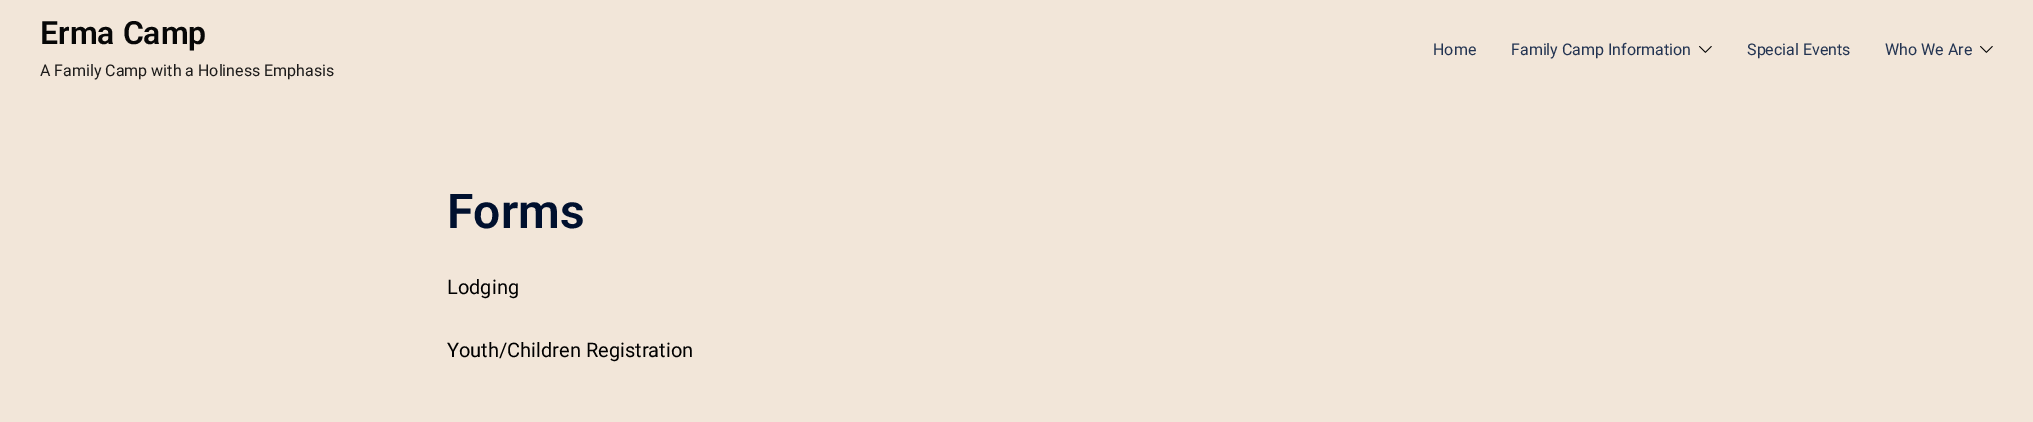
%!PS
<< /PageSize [2033 422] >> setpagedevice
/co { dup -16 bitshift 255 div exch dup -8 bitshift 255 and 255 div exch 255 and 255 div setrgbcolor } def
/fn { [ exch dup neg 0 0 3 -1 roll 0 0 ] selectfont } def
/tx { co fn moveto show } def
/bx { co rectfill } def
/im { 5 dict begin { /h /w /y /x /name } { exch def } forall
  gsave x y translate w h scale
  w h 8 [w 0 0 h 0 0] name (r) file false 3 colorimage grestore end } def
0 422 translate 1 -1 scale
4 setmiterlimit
0 0 2033 422 16#F2E6D9 bx
(media/1.raw) 1699 46 13 7 im
(media/1.raw) 1980 46 13 7 im
(Erma Camp) 40 44 /Roboto-SemiBold 32 16#070707 tx
(A Family Camp with a Holiness Emphasis) 40 76 /Roboto-Regular 16 16#1D1C1B tx
(Home) 1433 55 /Roboto-Regular 16 16#233452 tx
(Family Camp Information) 1511 55 /Roboto-Regular 16 16#233452 tx
(Special Events) 1747 55 /Roboto-Regular 16 16#233452 tx
(Who We Are) 1885 55 /Roboto-Regular 16 16#233452 tx
(Forms) 447 228 /Roboto-SemiBold 48 16#00102E tx
(Lodging) 447 294 /Roboto-Regular 20 16#000000 tx
(Youth/Children Registration) 447 357 /Roboto-Regular 20 16#000000 tx
showpage
